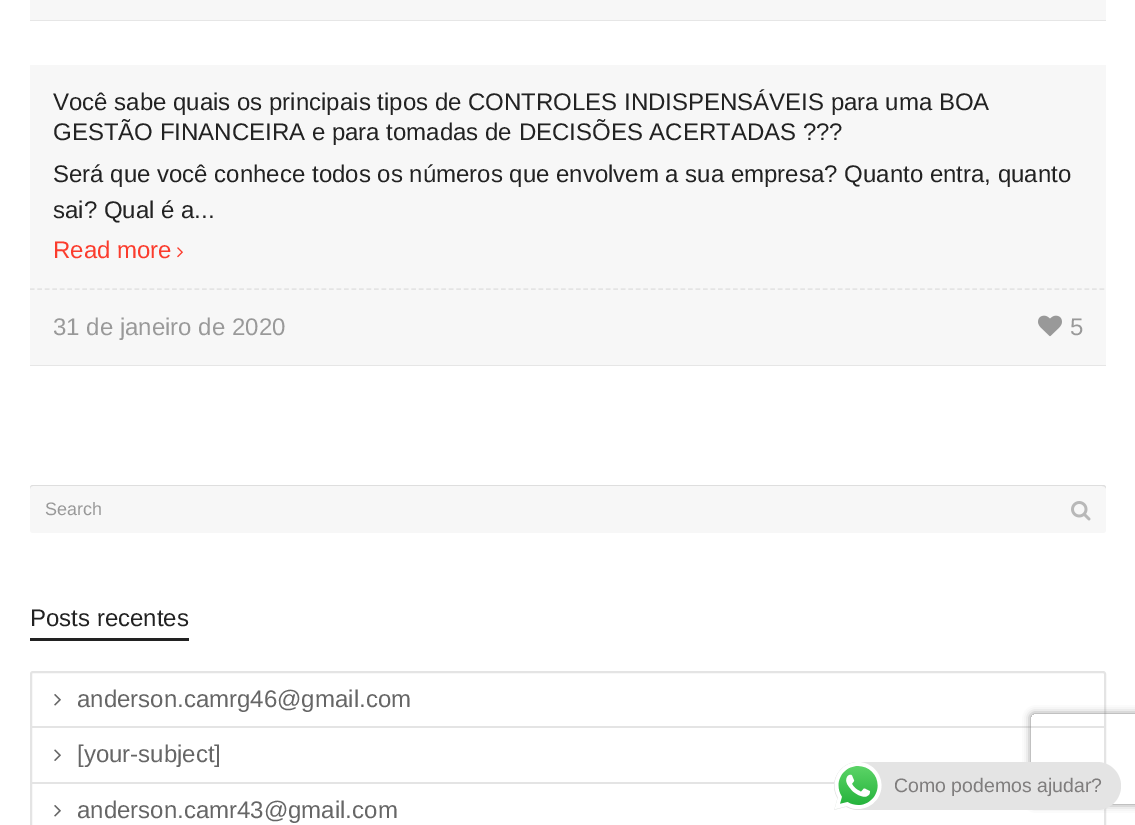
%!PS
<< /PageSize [1135 825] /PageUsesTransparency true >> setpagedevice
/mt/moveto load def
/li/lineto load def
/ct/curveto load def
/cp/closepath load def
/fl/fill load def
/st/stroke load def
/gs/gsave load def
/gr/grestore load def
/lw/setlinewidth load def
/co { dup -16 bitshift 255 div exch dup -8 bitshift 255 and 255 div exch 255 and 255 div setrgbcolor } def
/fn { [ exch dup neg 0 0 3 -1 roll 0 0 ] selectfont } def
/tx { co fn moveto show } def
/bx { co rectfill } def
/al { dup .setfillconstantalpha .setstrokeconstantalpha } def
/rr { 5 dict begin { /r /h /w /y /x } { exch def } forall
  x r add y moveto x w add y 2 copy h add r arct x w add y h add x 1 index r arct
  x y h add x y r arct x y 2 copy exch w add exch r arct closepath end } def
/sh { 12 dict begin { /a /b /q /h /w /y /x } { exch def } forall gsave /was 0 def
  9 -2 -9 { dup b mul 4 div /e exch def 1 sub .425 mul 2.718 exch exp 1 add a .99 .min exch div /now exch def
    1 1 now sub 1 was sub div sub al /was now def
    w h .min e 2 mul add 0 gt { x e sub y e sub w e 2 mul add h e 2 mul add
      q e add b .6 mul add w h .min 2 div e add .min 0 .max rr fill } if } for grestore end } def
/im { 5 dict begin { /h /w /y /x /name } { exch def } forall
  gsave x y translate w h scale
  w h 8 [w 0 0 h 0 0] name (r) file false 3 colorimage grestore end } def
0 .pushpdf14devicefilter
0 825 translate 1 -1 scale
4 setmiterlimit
0 0 1135 825 16#FFFFFF bx
16#E6E6E6 co
30 20 mt 30 21 li 1106 21 li 1106 -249 li 1106 20 li cp fl
30 0 1076 20 16#F7F7F7 bx
16#E6E6E6 co
30 364 mt 30 366 li 1106 366 li 1106 66 li 1106 364 li cp fl
30 65 1076 300 16#F7F7F7 bx
(media/1.raw) 177 247 6 11 im
16#E4E4E4 co
1.5 lw
[4.5 2.98] 0 setdash
30 289 mt 1105.5 289 li st
(media/2.raw) 1038 315 24 22 im
16#F7F7F7 co
30 485 1076 48 3 rr fl
0.1 al
16#000000 co
33 486 mt 1102 486 li 1104 486 1106 487 1106 489 ct 1106 488 li 1106 486 1105 485 1103 485 ct 33 485 li 31 485 30 486 30 488 ct 30 489 li 30 487 31 486 33 486 ct cp fl
1 al
(media/3.raw) 1071 501 20 20 im
30 638 159 3 16#222222 bx
16#E4E4E4 co
2 lw
[] 0 setdash
31 672 1074 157 2 rr st
(media/4.raw) 54 694 7 12 im
32 726 1072 2 16#E4E4E4 bx
(media/5.raw) 54 749 7 12 im
32 782 803 2 16#E4E4E4 bx
(media/4.raw) 54 805 7 12 im
gs
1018 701 mt 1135 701 li 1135 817 li 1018 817 li cp 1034 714 mt 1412 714 li 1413.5 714 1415 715.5 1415 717 ct 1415 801 li 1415 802.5 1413.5 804 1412 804 ct 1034 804 li 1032.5 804 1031 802.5 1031 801 ct 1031 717 li 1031 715.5 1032.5 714 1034 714 ct cp eoclip newpath
16#808080 co
1031 714 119 90 3 4 1 sh
gr
834 762 287 48 24 rr fl
(media/6.raw) 834 762 48 48 im
(Você sabe quais os principais tipos de CONTROLES INDISPENSÁVEIS para uma BOA) 53 110 /LiberationSans-Regular 24 16#222222 tx
(GESTÃO FINANCEIRA e para tomadas de DECISÕES ACERTADAS ???) 53 140 /LiberationSans-Regular 24 16#222222 tx
(Será que você conhece todos os números que envolvem a sua empresa? Quanto entra, quanto) 53 182 /LiberationSans-Regular 24 16#222222 tx
(sai? Qual é a...) 53 218 /LiberationSans-Regular 24 16#222222 tx
(Read more) 53 258 /LiberationSans-Regular 24 16#FB3C2D tx
(31 de janeiro de 2020) 53 335 /LiberationSans-Regular 24 16#999999 tx
(5) 1070 335 /LiberationSans-Regular 24 16#999999 tx
(Search) 45 515 /LiberationSans-Regular 18 16#999999 tx
(Posts recentes) 30 626 /LiberationSans-Regular 24 16#222222 tx
(anderson.camrg46@gmail.com) 77 707 /LiberationSans-Regular 24 16#666666 tx
([your-subject]) 77 762 /LiberationSans-Regular 24 16#666666 tx
(anderson.camr43@gmail.com) 77 818 /LiberationSans-Regular 24 16#666666 tx
(Como podemos ajudar?) 894 792 /LiberationSans-Regular 19.5 16#7F7D7D tx
.poppdf14devicefilter showpage
